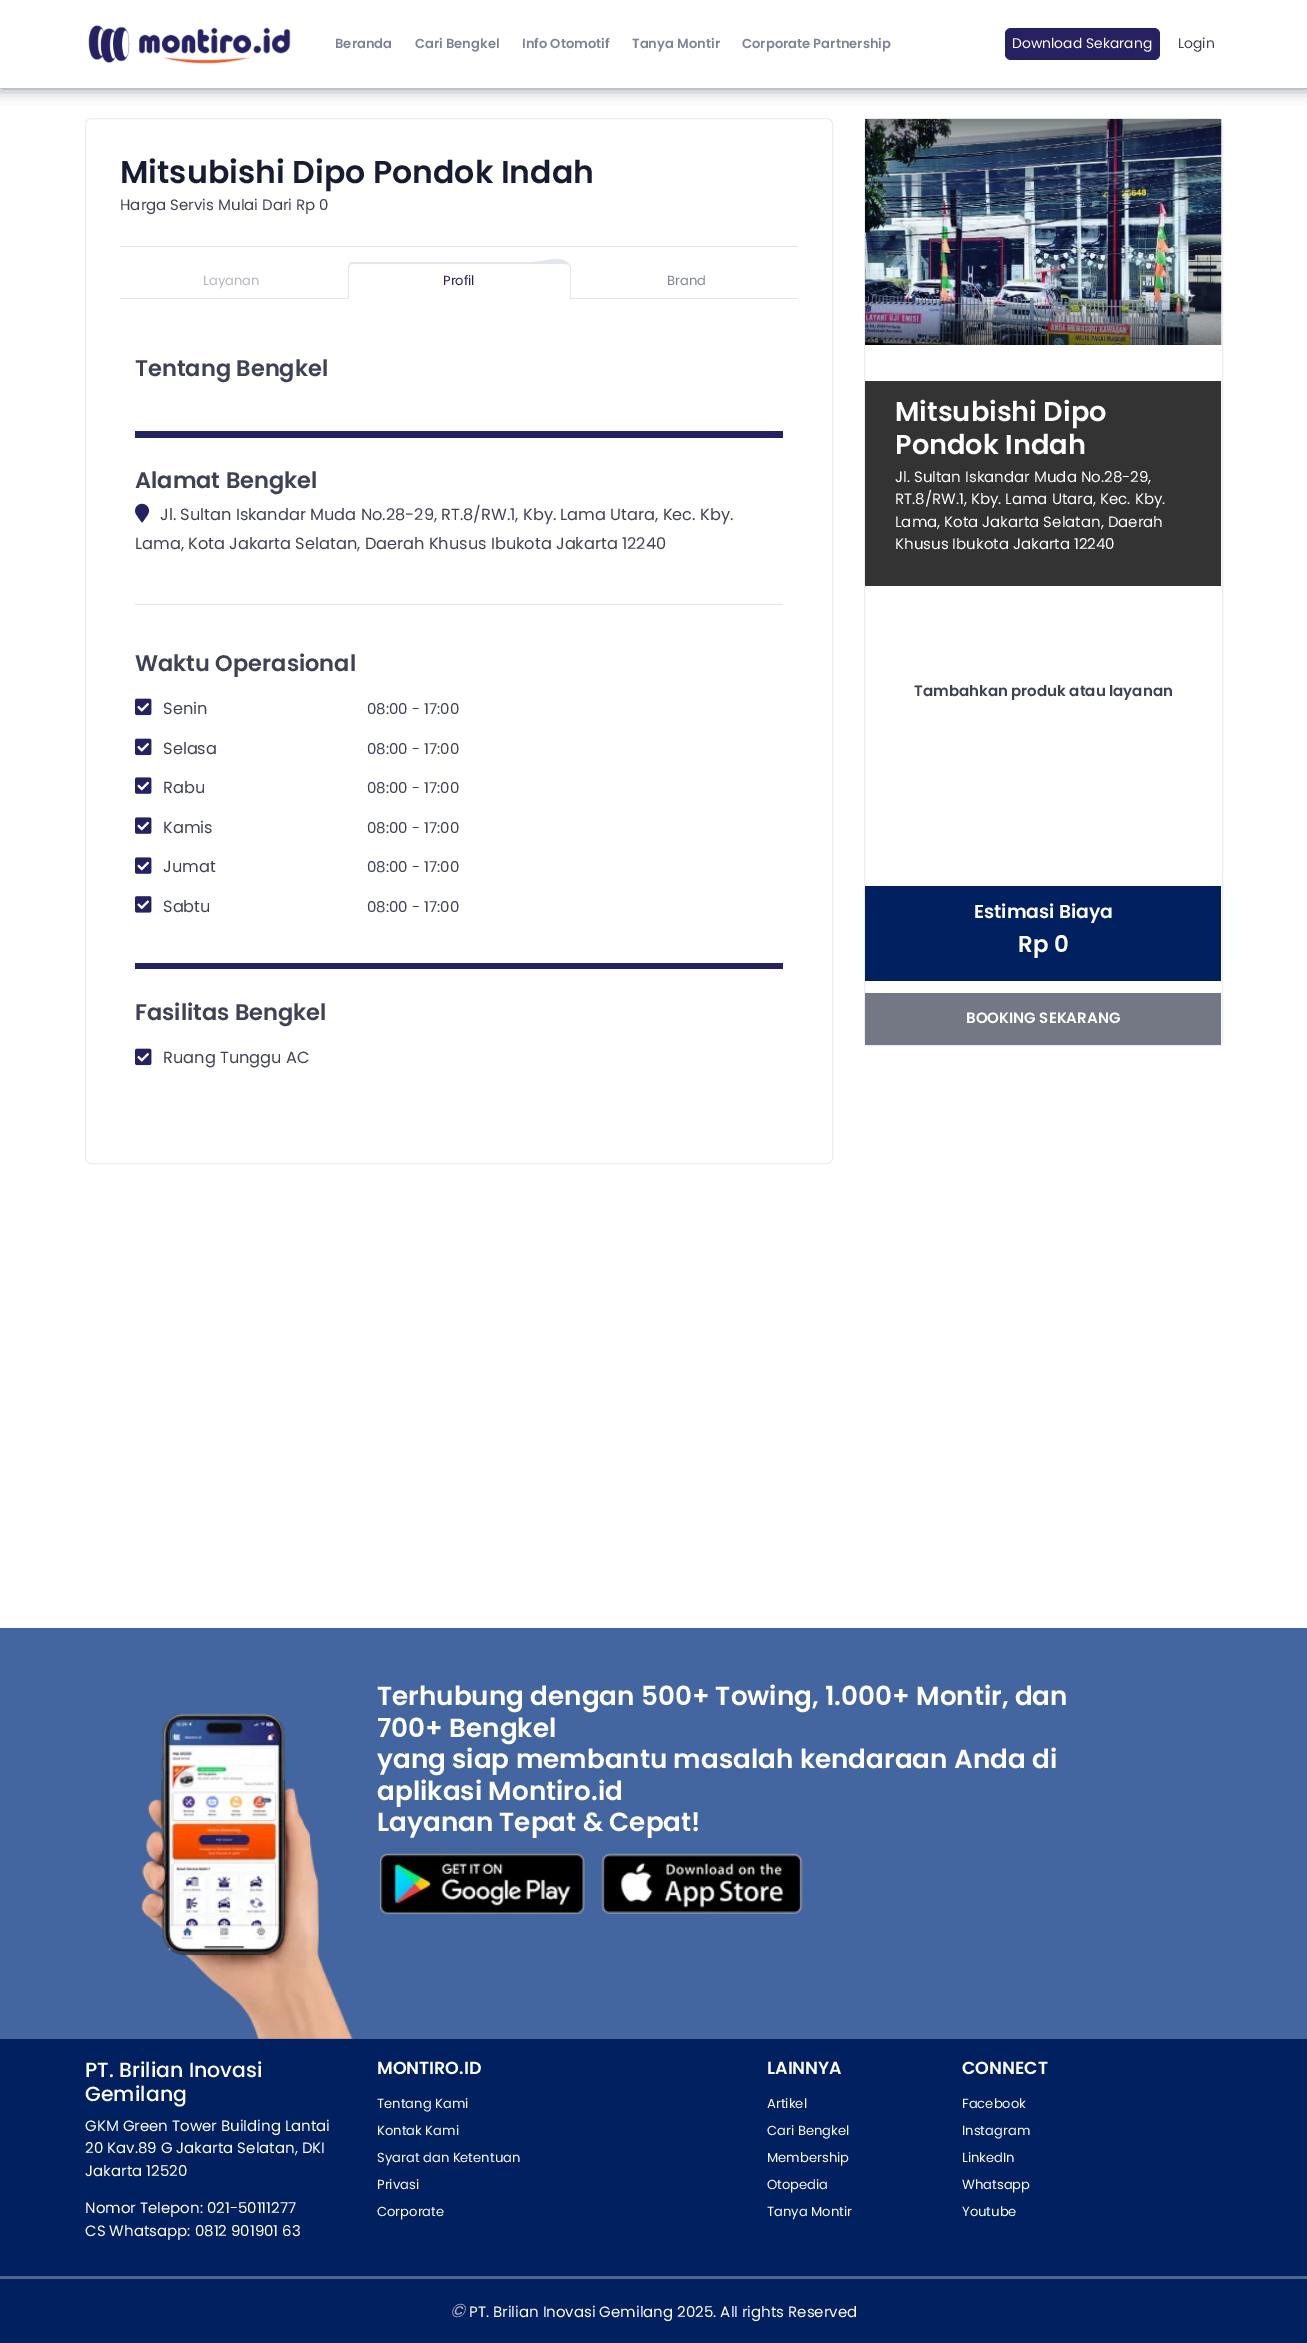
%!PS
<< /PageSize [1307 2343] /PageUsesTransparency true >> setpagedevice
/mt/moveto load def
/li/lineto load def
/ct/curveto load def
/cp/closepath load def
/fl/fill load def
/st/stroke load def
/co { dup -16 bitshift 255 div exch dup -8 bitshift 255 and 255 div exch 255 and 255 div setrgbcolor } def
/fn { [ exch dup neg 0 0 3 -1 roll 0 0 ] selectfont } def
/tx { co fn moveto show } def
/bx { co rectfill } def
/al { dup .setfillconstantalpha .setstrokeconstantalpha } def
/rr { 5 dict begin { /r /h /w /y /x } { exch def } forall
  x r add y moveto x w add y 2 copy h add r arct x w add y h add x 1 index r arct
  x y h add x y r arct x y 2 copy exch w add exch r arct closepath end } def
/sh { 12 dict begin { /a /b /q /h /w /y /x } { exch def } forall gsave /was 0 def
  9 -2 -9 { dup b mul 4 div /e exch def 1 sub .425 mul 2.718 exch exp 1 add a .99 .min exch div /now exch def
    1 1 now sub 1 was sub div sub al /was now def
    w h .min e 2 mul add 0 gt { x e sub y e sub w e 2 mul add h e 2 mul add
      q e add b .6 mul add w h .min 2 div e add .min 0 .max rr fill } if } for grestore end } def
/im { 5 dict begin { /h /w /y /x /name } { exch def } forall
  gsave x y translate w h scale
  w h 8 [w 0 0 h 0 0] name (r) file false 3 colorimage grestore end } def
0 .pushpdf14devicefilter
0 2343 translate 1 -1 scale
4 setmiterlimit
0 0 1307 2343 16#FFFFFF bx
16#7B7F91 co
0 0 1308 88 0 7.5 1 sh
0 0 1307 88 16#FFFFFF bx
(media/1.raw) 88 25 203 39 im
16#262261 co
1005 28 155 32 6 rr fl
16#EBEDF3 co
85.5 118.5 747 1045 5.5 rr st
120 246 678 1 16#E6E6E6 bx
120 298 678 1 16#E4E6EF bx
16#FFFFFF co
354 263 mt 565 263 li 568.5 263 571 265.5 571 269 ct 571 300 li 348 300 li 348 269 li 348 265.5 350.5 263 354 263 ct cp fl
16#E4E6EF co
354 264 mt 352 264 351 264 350 265 ct 349 264 li 351 262 li 531 262 li 544 262 561 254 569 264 ct 568 265 li 568 264 566 264 565 264 ct cp fl
569.5 264.5 mt 570.5 265.5 571 267 571 269 ct 571 300 li 570 299 li 570 269 li 570 267.5 569.5 266 568.5 265.5 ct cp fl
16#FFFFFF co
348 300 mt 571 300 li 570 299 li 349 299 li 349 298 li cp fl
16#E4E6EF co
348 299.5 mt 348 269 li 348 267 348.5 265.5 349.5 264.5 ct 350.5 265.5 li 349.5 266 349 267.5 349 269 ct 349 298.5 li cp fl
135 431 648 7 16#252262 bx
(media/2.raw) 135 503 15 20 im
135 604 648 1 16#E6E6E6 bx
135 963 648 6 16#252262 bx
(media/3.raw) 135 698 17 18 im
(media/3.raw) 135 738 17 18 im
(media/4.raw) 135 777 17 17 im
(media/4.raw) 135 817 17 17 im
(media/4.raw) 135 857 17 17 im
(media/5.raw) 135 896 17 17 im
(media/3.raw) 135 1048 17 18 im
16#EBEDF3 co
864.5 118.5 358 927 5.5 rr st
(media/6.raw) 865 118 357 227 im
865 381 356 205 16#333333 bx
865 886 356 95 16#002060 bx
865 993 356 52 16#747784 bx
0 1628 1307 411 16#4366A1 bx
(media/7.raw) 141 1713 212 326 im
(media/8.raw) 379 1853 206 62 im
(media/9.raw) 601 1853 202 61 im
0 2039 1307 304 16#002060 bx
0 2276 1307 3 16#4D6390 bx
(Beranda) 335 48 /Poppins-SemiBold 13.1 16#7E8299 tx
(Cari Bengkel) 415 48 /Poppins-SemiBold 13.1 16#7E8299 tx
(Info Otomotif) 522 48 /Poppins-SemiBold 13.1 16#7E8299 tx
(Tanya Montir) 632 48 /Poppins-SemiBold 13.1 16#7E8299 tx
(Corporate Partnership) 742 48 /Poppins-SemiBold 13.1 16#7E8299 tx
(Download Sekarang) 1012 48 /Poppins-Regular 13.9 16#FFFFFF tx
(Login) 1178 48 /Poppins-Regular 13.9 16#3F4254 tx
(Mitsubishi Dipo Pondok Indah) 120 183 /Poppins-SemiBold 31.6 16#181C32 tx
(Harga Servis Mulai Dari Rp 0) 120 210 /Poppins-Regular 15 16#3F4254 tx
(Layanan) 203 285 /Poppins-Regular 13.1 16#B5B5C3 tx
(Profil) 443 285 /Poppins-Regular 13.1 16#262261 tx
(Brand) 667 285 /Poppins-Regular 13.1 16#7E8299 tx
(Tentang Bengkel) 135 376 /Poppins-SemiBold 22.5 16#3F4254 tx
(Alamat Bengkel) 135 488 /Poppins-SemiBold 22.5 16#3F4254 tx
(Jl. Sultan Iskandar Muda No.28-29, RT.8/RW.1, Kby. Lama Utara, Kec. Kby.) 160 520 /Poppins-Regular 16.2 16#3F4254 tx
(Lama, Kota Jakarta Selatan, Daerah Khusus Ibukota Jakarta 12240) 135 549 /Poppins-Regular 16.2 16#3F4254 tx
(Waktu Operasional) 135 671 /Poppins-SemiBold 22.5 16#3F4254 tx
(Senin) 163 714 /Poppins-Regular 16.2 16#3F4254 tx
(08:00 - 17:00) 367 714 /Poppins-Regular 15 16#3F4254 tx
(Selasa) 163 754 /Poppins-Regular 16.2 16#3F4254 tx
(08:00 - 17:00) 367 754 /Poppins-Regular 15 16#3F4254 tx
(Rabu) 163 793 /Poppins-Regular 16.2 16#3F4254 tx
(08:00 - 17:00) 367 793 /Poppins-Regular 15 16#3F4254 tx
(Kamis) 163 833 /Poppins-Regular 16.2 16#3F4254 tx
(08:00 - 17:00) 367 833 /Poppins-Regular 15 16#3F4254 tx
(Jumat) 163 872 /Poppins-Regular 16.2 16#3F4254 tx
(08:00 - 17:00) 367 872 /Poppins-Regular 15 16#3F4254 tx
(Sabtu) 163 912 /Poppins-Regular 16.2 16#3F4254 tx
(08:00 - 17:00) 367 912 /Poppins-Regular 15 16#3F4254 tx
(Fasilitas Bengkel) 135 1020 /Poppins-SemiBold 22.5 16#3F4254 tx
(Ruang Tunggu AC) 163 1063 /Poppins-Regular 16.2 16#3F4254 tx
(Mitsubishi Dipo) 895 421 /Poppins-SemiBold 27.25 16#FFFFFF tx
(Pondok Indah) 895 454 /Poppins-SemiBold 27.25 16#FFFFFF tx
(Jl. Sultan Iskandar Muda No.28-29,) 895 482 /Poppins-Regular 15 16#FFFFFF tx
(RT.8/RW.1, Kby. Lama Utara, Kec. Kby.) 895 504 /Poppins-Regular 15 16#FFFFFF tx
(Lama, Kota Jakarta Selatan, Daerah) 895 527 /Poppins-Regular 15 16#FFFFFF tx
(Khusus Ibukota Jakarta 12240) 895 549 /Poppins-Regular 15 16#FFFFFF tx
(Tambahkan produk atau layanan) 914 696 /Poppins-SemiBold 15 16#3F4254 tx
(Estimasi Biaya) 974 918 /Poppins-SemiBold 18.75 16#FFFFFF tx
(Rp 0) 1018 952 /Poppins-SemiBold 23 16#FFFFFF tx
(BOOKING SEKARANG) 966 1023 /Poppins-SemiBold 15 16#FFFFFF tx
(Terhubung dengan 500+ Towing, 1.000+ Montir, dan) 377 1705 /Poppins-SemiBold 26.25 16#FFFFFF tx
(700+ Bengkel) 377 1737 /Poppins-SemiBold 26.25 16#FFFFFF tx
(yang siap membantu masalah kendaraan Anda di) 377 1768 /Poppins-SemiBold 26.25 16#FFFFFF tx
(aplikasi Montiro.id) 377 1800 /Poppins-SemiBold 26.25 16#FFFFFF tx
(Layanan Tepat & Cepat!) 377 1831 /Poppins-SemiBold 26.25 16#FFFFFF tx
(PT. Brilian Inovasi) 85 2077 /Poppins-Medium 20.5 16#FFFFFF tx
(Gemilang) 85 2101 /Poppins-Medium 20.5 16#FFFFFF tx
(GKM Green Tower Building Lantai) 85 2131 /Poppins-Regular 15 16#FFFFFF tx
(20 Kav.89 G Jakarta Selatan, DKI) 85 2153 /Poppins-Regular 15 16#FFFFFF tx
(Jakarta 12520) 85 2176 /Poppins-Regular 15 16#FFFFFF tx
(Nomor Telepon: 021-50111277) 85 2213 /Poppins-Regular 15 16#FFFFFF tx
(CS Whatsapp: 0812 901901 63) 85 2236 /Poppins-Regular 15 16#FFFFFF tx
(MONTIRO.ID) 377 2074 /Poppins-SemiBold 17.5 16#FFFFFF tx
(Tentang Kami) 377 2108 /Poppins-Regular 13.1 16#FFFFFF tx
(Kontak Kami) 377 2135 /Poppins-Regular 13.1 16#FFFFFF tx
(Syarat dan Ketentuan) 377 2162 /Poppins-Regular 13.1 16#FFFFFF tx
(Privasi) 377 2189 /Poppins-Regular 13.1 16#FFFFFF tx
(Corporate) 377 2216 /Poppins-Regular 13.1 16#FFFFFF tx
(LAINNYA) 767 2074 /Poppins-SemiBold 17.5 16#FFFFFF tx
(Artikel) 767 2108 /Poppins-Regular 13.1 16#FFFFFF tx
(Cari Bengkel) 767 2135 /Poppins-Regular 13.1 16#FFFFFF tx
(Membership) 767 2162 /Poppins-Regular 13.1 16#FFFFFF tx
(Otopedia) 767 2189 /Poppins-Regular 13.1 16#FFFFFF tx
(Tanya Montir) 767 2216 /Poppins-Regular 13.1 16#FFFFFF tx
(CONNECT) 962 2074 /Poppins-SemiBold 17.5 16#FFFFFF tx
(Facebook) 962 2108 /Poppins-Regular 13.1 16#FFFFFF tx
(Instagram) 962 2135 /Poppins-Regular 13.1 16#FFFFFF tx
(LinkedIn) 962 2162 /Poppins-Regular 13.1 16#FFFFFF tx
(Whatsapp) 962 2189 /Poppins-Regular 13.1 16#FFFFFF tx
(Youtube) 962 2216 /Poppins-Regular 13.1 16#FFFFFF tx
(©) 450 2317 /Poppins-Italic 18.75 16#B5B5C3 tx
(PT. Brilian Inovasi Gemilang 2025. All rights Reserved) 469 2317 /Poppins-Regular 15 16#FFFFFF tx
.poppdf14devicefilter showpage
